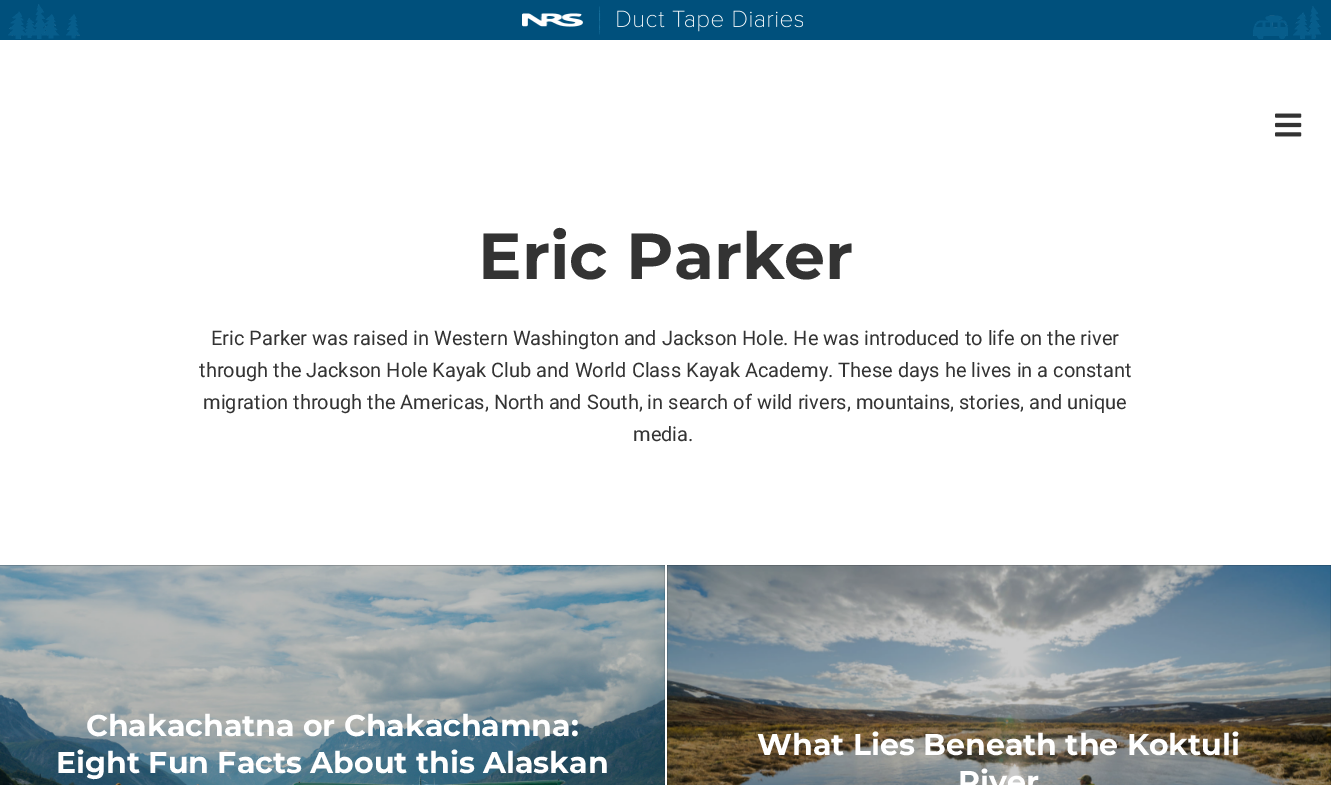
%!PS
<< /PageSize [1331 785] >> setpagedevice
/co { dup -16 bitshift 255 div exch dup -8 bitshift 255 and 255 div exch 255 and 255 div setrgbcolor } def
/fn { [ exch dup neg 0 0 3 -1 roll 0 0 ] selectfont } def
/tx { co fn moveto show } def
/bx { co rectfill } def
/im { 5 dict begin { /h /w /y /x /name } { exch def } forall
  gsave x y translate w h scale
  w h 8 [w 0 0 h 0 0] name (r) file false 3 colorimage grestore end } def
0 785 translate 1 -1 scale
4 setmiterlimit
0 0 1331 785 16#FFFFFF bx
0 0 1331 40 16#00507C bx
(media/1.raw) 8 4 72 35 im
(media/2.raw) 522 13 61 14 im
(media/3.raw) 599 6 204 29 im
(media/4.raw) 1253 6 68 33 im
(media/5.raw) 1275 113 27 24 im
0 565 665 220 16#000000 bx
(media/6.raw) 0 565 665 220 im
667 565 664 220 16#000000 bx
(media/7.raw) 667 565 664 220 im
(Eric Parker) 478 279 /Montserrat-Bold 65 16#333333 tx
(Eric Parker was raised in Western Washington and Jackson Hole. He was introduced to life on the river) 211 345 /Roboto-Regular 20 16#333333 tx
(through the Jackson Hole Kayak Club and World Class Kayak Academy. These days he lives in a constant) 199 377 /Roboto-Regular 20 16#333333 tx
(migration through the Americas, North and South, in search of wild rivers, mountains, stories, and unique) 203 409 /Roboto-Regular 20 16#333333 tx
(media.) 633 441 /Roboto-Regular 20 16#333333 tx
(Chakachatna or Chakachamna:) 86 736 /Montserrat-Bold 30 16#FFFFFF tx
(Eight Fun Facts About this Alaskan) 56 773 /Montserrat-Bold 30 16#FFFFFF tx
(What Lies Beneath the Koktuli) 757 755 /Montserrat-Bold 30 16#FFFFFF tx
(River) 958 792 /Montserrat-Bold 30 16#FFFFFF tx
showpage
